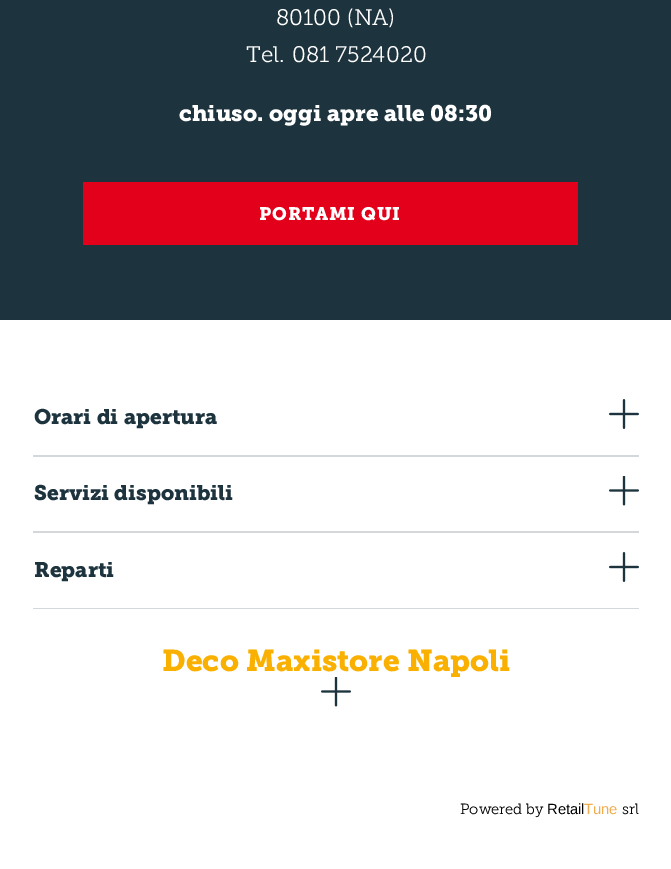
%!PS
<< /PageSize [671 869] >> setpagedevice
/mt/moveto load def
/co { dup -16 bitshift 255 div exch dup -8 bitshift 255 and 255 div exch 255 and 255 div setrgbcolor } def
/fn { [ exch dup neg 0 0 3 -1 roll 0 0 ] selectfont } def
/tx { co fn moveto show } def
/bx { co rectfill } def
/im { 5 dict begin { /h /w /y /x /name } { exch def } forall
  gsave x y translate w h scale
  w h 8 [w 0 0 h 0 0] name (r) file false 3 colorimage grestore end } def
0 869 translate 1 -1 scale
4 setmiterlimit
0 0 671 869 16#FFFFFF bx
0 0 671 320 16#1D333E bx
83 182 495 63 16#E2001A bx
33 455 606 2 16#D4D8DA bx
(media/1.raw) 609 399 30 30 im
33 531 606 2 16#D4D8DA bx
(media/2.raw) 609 476 30 30 im
33 608 606 1 16#D4D8DA bx
(media/1.raw) 609 552 30 30 im
(media/2.raw) 321 677 30 30 im
(80100 \(NA\)) 276 25 /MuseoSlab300-Light 22.5 16#FFFFFF tx
(Tel.) 246 62 /MuseoSlab300-Light 22.5 16#FFFFFF tx
(081 7524020) 292 62 /MuseoSlab300-Light 22.5 16#FFFFFF tx
(chiuso. oggi apre alle 08:30) 179 121 /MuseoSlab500-Bold 22.5 16#FFFFFF tx
/MuseoSlab500-Bold 18 fn
259 220 mt .75 0 (PORTAMI QUI) ashow
(Orari di apertura) 34 424 /MuseoSlab500-Bold 21 16#1D333E tx
(Servizi disponibili) 34 500 /MuseoSlab500-Bold 21 16#1D333E tx
(Reparti) 34 577 /MuseoSlab500-Bold 21 16#1D333E tx
(Deco Maxistore Napoli) 162 671 /MuseoSlab500-Bold 30 16#F9B000 tx
(Powered by) 460 814 /MuseoSlab300-Light 14.75 16#000000 tx
(Retail) 547 814 /LiberationSans-Regular 14.75 16#000000 tx
(Tune) 584 814 /LiberationSans-Regular 14.75 16#F0AD4E tx
(srl) 622 814 /MuseoSlab300-Light 14.75 16#000000 tx
showpage
